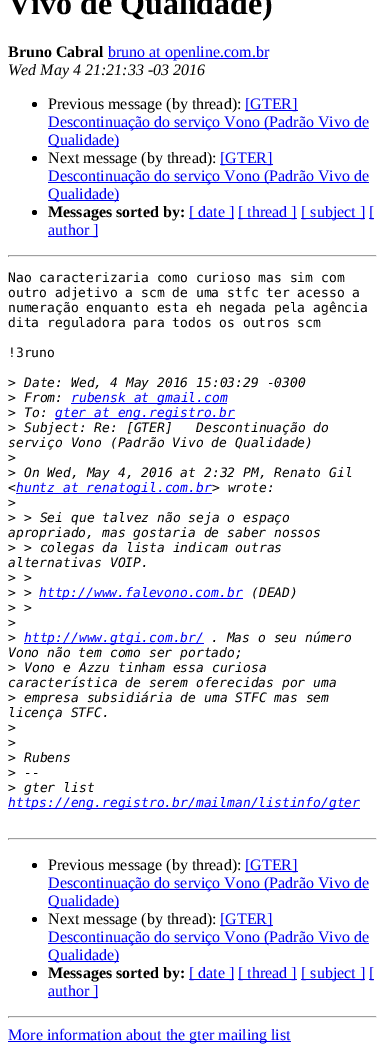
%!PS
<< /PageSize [385 1052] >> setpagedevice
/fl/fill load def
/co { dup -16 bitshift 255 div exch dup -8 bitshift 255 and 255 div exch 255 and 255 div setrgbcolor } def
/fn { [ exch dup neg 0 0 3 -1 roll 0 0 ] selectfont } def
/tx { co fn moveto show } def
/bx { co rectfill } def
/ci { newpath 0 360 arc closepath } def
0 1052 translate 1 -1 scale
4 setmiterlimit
0 0 385 1052 16#FFFFFF bx
108 58 160 1 16#0000EE bx
16#000000 co
34.5 104.5 2.5 ci fl
245 110 53 1 16#0000EE bx
48 128 321 1 16#0000EE bx
48 146 71 1 16#0000EE bx
16#000000 co
34.5 158.5 2.5 ci fl
220 164 53 1 16#0000EE bx
48 182 321 1 16#0000EE bx
48 200 71 1 16#0000EE bx
16#000000 co
34.5 212.5 2.5 ci fl
189 218 45 1 16#0000EE bx
238 218 59 1 16#0000EE bx
301 218 64 1 16#0000EE bx
369 218 5 1 16#0000EE bx
48 236 50 1 16#0000EE bx
8 255 369 1 16#9F9F9F bx
376 255 1 2 16#EEEEEE bx
8 256 369 1 16#EEEEEE bx
8 255 1 2 16#9F9F9F bx
71 403 156 1 16#0000EE bx
55 418 180 1 16#0000EE bx
16 493 196 1 16#0000EE bx
39 598 204 1 16#0000EE bx
24 643 180 1 16#0000EE bx
8 808 352 1 16#0000EE bx
8 838 369 1 16#9F9F9F bx
376 838 1 2 16#EEEEEE bx
8 839 369 1 16#EEEEEE bx
8 838 1 2 16#9F9F9F bx
16#000000 co
34.5 865.5 2.5 ci fl
245 871 53 1 16#0000EE bx
48 889 321 1 16#0000EE bx
48 907 71 1 16#0000EE bx
16#000000 co
34.5 919.5 2.5 ci fl
220 925 53 1 16#0000EE bx
48 943 321 1 16#0000EE bx
48 961 71 1 16#0000EE bx
16#000000 co
34.5 973.5 2.5 ci fl
189 979 45 1 16#0000EE bx
238 979 59 1 16#0000EE bx
301 979 64 1 16#0000EE bx
369 979 5 1 16#0000EE bx
48 997 50 1 16#0000EE bx
8 1016 369 1 16#9F9F9F bx
376 1016 1 2 16#EEEEEE bx
8 1017 369 1 16#EEEEEE bx
8 1016 1 2 16#9F9F9F bx
8 1041 283 1 16#0000EE bx
(Vivo de Qualidade\)) 8 14 /LiberationSerif-Bold 32 16#000000 tx
(Bruno Cabral) 8 57 /LiberationSerif-Bold 16 16#000000 tx
(bruno at openline.com.br) 108 57 /LiberationSerif-Regular 16 16#0000EE tx
(Wed May 4 21:21:33 -03 2016) 8 75 /LiberationSerif-Italic 16 16#000000 tx
(Previous message \(by thread\):) 48 109 /LiberationSerif-Regular 16 16#000000 tx
([GTER]) 245 109 /LiberationSerif-Regular 16 16#0000EE tx
(Descontinuação do serviço Vono \(Padrão Vivo de) 48 127 /LiberationSerif-Regular 16 16#0000EE tx
(Qualidade\)) 48 145 /LiberationSerif-Regular 16 16#0000EE tx
(Next message \(by thread\):) 48 163 /LiberationSerif-Regular 16 16#000000 tx
([GTER]) 220 163 /LiberationSerif-Regular 16 16#0000EE tx
(Descontinuação do serviço Vono \(Padrão Vivo de) 48 181 /LiberationSerif-Regular 16 16#0000EE tx
(Qualidade\)) 48 199 /LiberationSerif-Regular 16 16#0000EE tx
(Messages sorted by:) 48 217 /LiberationSerif-Bold 16 16#000000 tx
([ date ]) 189 217 /LiberationSerif-Regular 16 16#0000EE tx
([ thread ]) 238 217 /LiberationSerif-Regular 16 16#0000EE tx
([ subject ]) 301 217 /LiberationSerif-Regular 16 16#0000EE tx
([) 369 217 /LiberationSerif-Regular 16 16#0000EE tx
(author ]) 48 235 /LiberationSerif-Regular 16 16#0000EE tx
(Nao caracterizaria como curioso mas sim com) 8 282 /DejaVuSansMono-Regular 13 16#000000 tx
(outro adjetivo a scm de uma stfc ter acesso a) 8 297 /DejaVuSansMono-Regular 13 16#000000 tx
(numeração enquanto esta eh negada pela agência) 8 312 /DejaVuSansMono-Regular 13 16#000000 tx
(dita reguladora para todos os outros scm) 8 327 /DejaVuSansMono-Regular 13 16#000000 tx
(!3runo) 8 357 /DejaVuSansMono-Regular 13 16#000000 tx
(>) 8 387 /DejaVuSansMono-Regular 13 16#000000 tx
(Date: Wed, 4 May 2016 15:03:29 -0300) 24 387 /DejaVuSansMono-Italic 13 16#000000 tx
(>) 8 402 /DejaVuSansMono-Regular 13 16#000000 tx
(From:) 24 402 /DejaVuSansMono-Italic 13 16#000000 tx
(rubensk at gmail.com) 71 402 /DejaVuSansMono-Italic 13 16#0000EE tx
(>) 8 417 /DejaVuSansMono-Regular 13 16#000000 tx
(To:) 24 417 /DejaVuSansMono-Italic 13 16#000000 tx
(gter at eng.registro.br) 55 417 /DejaVuSansMono-Italic 13 16#0000EE tx
(>) 8 432 /DejaVuSansMono-Regular 13 16#000000 tx
(Subject: Re: [GTER]) 24 432 /DejaVuSansMono-Italic 13 16#000000 tx
(Descontinuação do) 196 432 /DejaVuSansMono-Italic 13 16#000000 tx
(serviço Vono \(Padrão Vivo de Qualidade\)) 8 447 /DejaVuSansMono-Italic 13 16#000000 tx
(>) 8 462 /DejaVuSansMono-Regular 13 16#000000 tx
(>) 8 477 /DejaVuSansMono-Regular 13 16#000000 tx
(On Wed, May 4, 2016 at 2:32 PM, Renato Gil) 24 477 /DejaVuSansMono-Italic 13 16#000000 tx
(<) 8 492 /DejaVuSansMono-Italic 13 16#000000 tx
(huntz at renatogil.com.br) 16 492 /DejaVuSansMono-Italic 13 16#0000EE tx
(> wrote:) 212 492 /DejaVuSansMono-Italic 13 16#000000 tx
(>) 8 507 /DejaVuSansMono-Regular 13 16#000000 tx
(>) 8 522 /DejaVuSansMono-Regular 13 16#000000 tx
(> Sei que talvez não seja o espaço) 24 522 /DejaVuSansMono-Italic 13 16#000000 tx
(apropriado, mas gostaria de saber nossos) 8 537 /DejaVuSansMono-Italic 13 16#000000 tx
(>) 8 552 /DejaVuSansMono-Regular 13 16#000000 tx
(> colegas da lista indicam outras) 24 552 /DejaVuSansMono-Italic 13 16#000000 tx
(alternativas VOIP.) 8 567 /DejaVuSansMono-Italic 13 16#000000 tx
(>) 8 582 /DejaVuSansMono-Regular 13 16#000000 tx
(>) 24 582 /DejaVuSansMono-Italic 13 16#000000 tx
(>) 8 597 /DejaVuSansMono-Regular 13 16#000000 tx
(>) 24 597 /DejaVuSansMono-Italic 13 16#000000 tx
(http://www.falevono.com.br) 39 597 /DejaVuSansMono-Italic 13 16#0000EE tx
(\(DEAD\)) 251 597 /DejaVuSansMono-Italic 13 16#000000 tx
(>) 8 612 /DejaVuSansMono-Regular 13 16#000000 tx
(>) 24 612 /DejaVuSansMono-Italic 13 16#000000 tx
(>) 8 627 /DejaVuSansMono-Regular 13 16#000000 tx
(>) 8 642 /DejaVuSansMono-Regular 13 16#000000 tx
(http://www.gtgi.com.br/) 24 642 /DejaVuSansMono-Italic 13 16#0000EE tx
(. Mas o seu número) 211 642 /DejaVuSansMono-Italic 13 16#000000 tx
(Vono não tem como ser portado;) 8 657 /DejaVuSansMono-Italic 13 16#000000 tx
(>) 8 672 /DejaVuSansMono-Regular 13 16#000000 tx
(Vono e Azzu tinham essa curiosa) 24 672 /DejaVuSansMono-Italic 13 16#000000 tx
(característica de serem oferecidas por uma) 8 687 /DejaVuSansMono-Italic 13 16#000000 tx
(>) 8 702 /DejaVuSansMono-Regular 13 16#000000 tx
(empresa subsidiária de uma STFC mas sem) 24 702 /DejaVuSansMono-Italic 13 16#000000 tx
(licença STFC.) 8 717 /DejaVuSansMono-Italic 13 16#000000 tx
(>) 8 732 /DejaVuSansMono-Regular 13 16#000000 tx
(>) 8 747 /DejaVuSansMono-Regular 13 16#000000 tx
(>) 8 762 /DejaVuSansMono-Regular 13 16#000000 tx
(Rubens) 24 762 /DejaVuSansMono-Italic 13 16#000000 tx
(>) 8 777 /DejaVuSansMono-Regular 13 16#000000 tx
(--) 24 777 /DejaVuSansMono-Italic 13 16#000000 tx
(>) 8 792 /DejaVuSansMono-Regular 13 16#000000 tx
(gter list) 24 792 /DejaVuSansMono-Italic 13 16#000000 tx
(https://eng.registro.br/mailman/listinfo/gter) 8 807 /DejaVuSansMono-Italic 13 16#0000EE tx
(Previous message \(by thread\):) 48 870 /LiberationSerif-Regular 16 16#000000 tx
([GTER]) 245 870 /LiberationSerif-Regular 16 16#0000EE tx
(Descontinuação do serviço Vono \(Padrão Vivo de) 48 888 /LiberationSerif-Regular 16 16#0000EE tx
(Qualidade\)) 48 906 /LiberationSerif-Regular 16 16#0000EE tx
(Next message \(by thread\):) 48 924 /LiberationSerif-Regular 16 16#000000 tx
([GTER]) 220 924 /LiberationSerif-Regular 16 16#0000EE tx
(Descontinuação do serviço Vono \(Padrão Vivo de) 48 942 /LiberationSerif-Regular 16 16#0000EE tx
(Qualidade\)) 48 960 /LiberationSerif-Regular 16 16#0000EE tx
(Messages sorted by:) 48 978 /LiberationSerif-Bold 16 16#000000 tx
([ date ]) 189 978 /LiberationSerif-Regular 16 16#0000EE tx
([ thread ]) 238 978 /LiberationSerif-Regular 16 16#0000EE tx
([ subject ]) 301 978 /LiberationSerif-Regular 16 16#0000EE tx
([) 369 978 /LiberationSerif-Regular 16 16#0000EE tx
(author ]) 48 996 /LiberationSerif-Regular 16 16#0000EE tx
(More information about the gter mailing list) 8 1040 /LiberationSerif-Regular 16 16#0000EE tx
showpage
